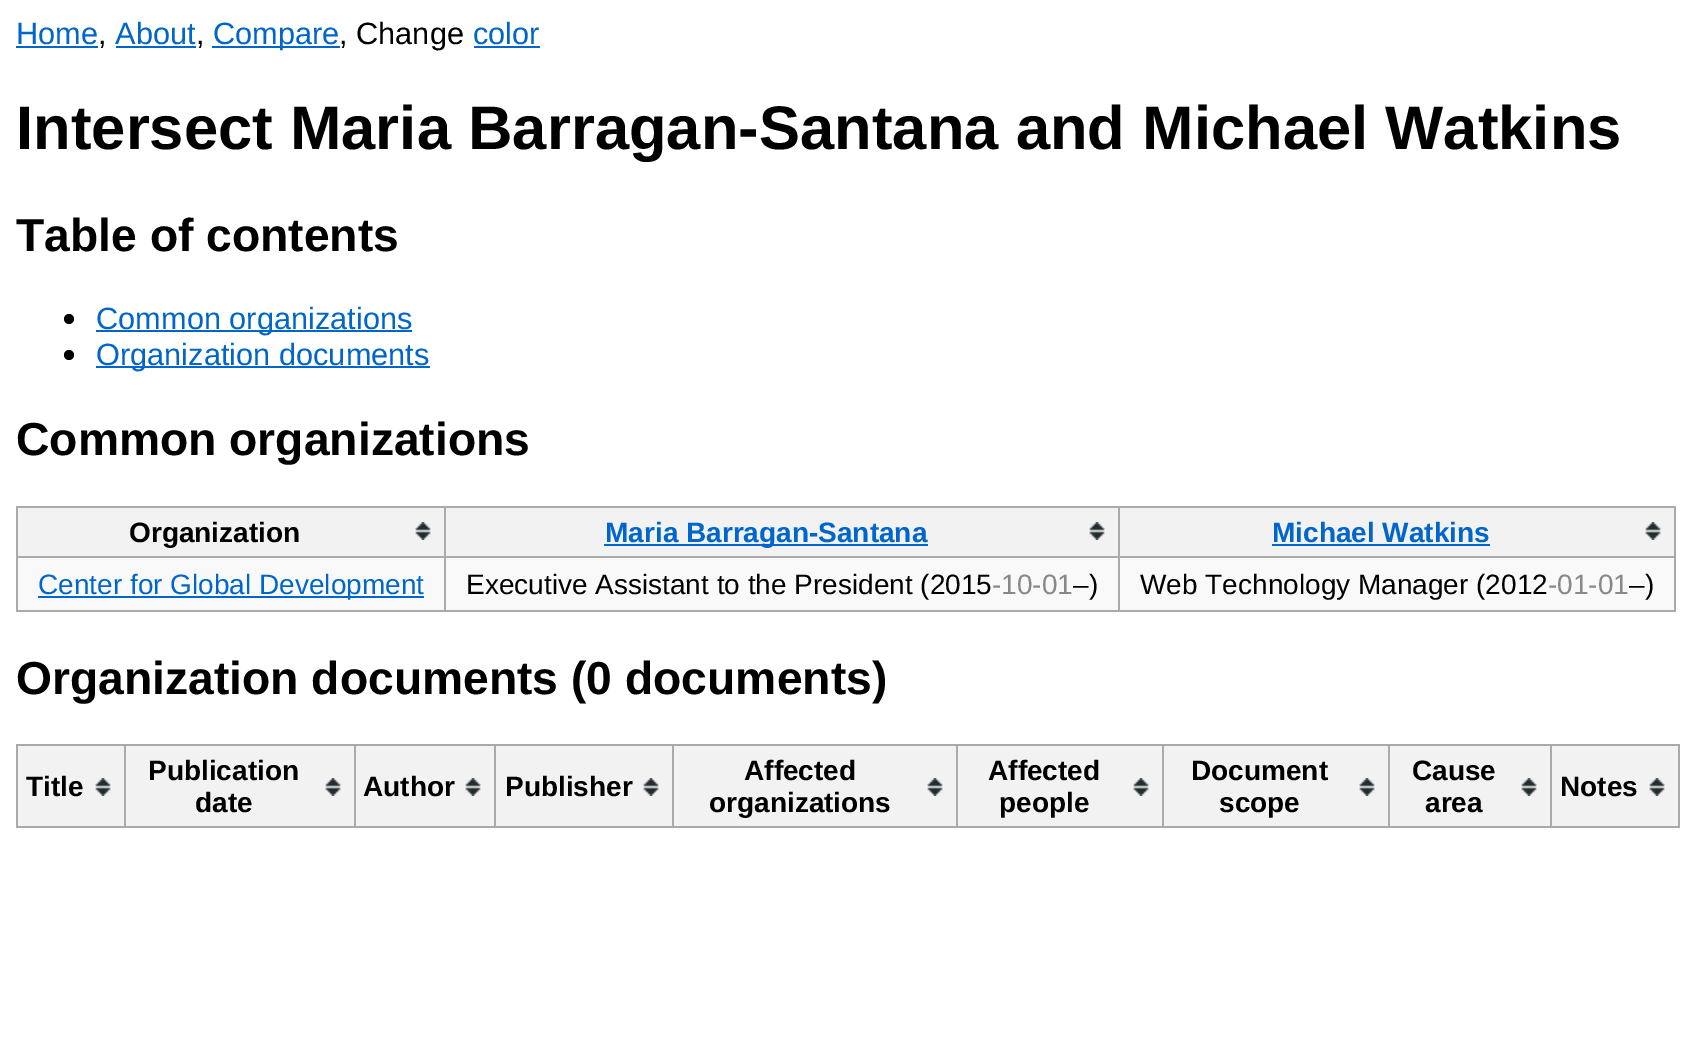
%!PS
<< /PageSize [1695 1039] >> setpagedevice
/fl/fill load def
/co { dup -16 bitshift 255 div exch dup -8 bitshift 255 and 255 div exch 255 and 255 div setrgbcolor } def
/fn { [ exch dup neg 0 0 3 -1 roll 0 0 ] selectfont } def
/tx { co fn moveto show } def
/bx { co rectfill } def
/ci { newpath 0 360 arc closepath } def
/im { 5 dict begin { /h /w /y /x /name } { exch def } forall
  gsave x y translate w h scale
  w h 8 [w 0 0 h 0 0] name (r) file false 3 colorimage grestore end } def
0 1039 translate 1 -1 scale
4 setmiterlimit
0 0 1695 1039 16#FFFFFF bx
16 46 82 2 16#0066CC bx
116 46 80 2 16#0066CC bx
212 46 128 2 16#0066CC bx
474 46 66 2 16#0066CC bx
16#000000 co
69 319 5 ci fl
96 330 316 2 16#0066CC bx
16#000000 co
69 355 5 ci fl
96 366 334 2 16#0066CC bx
18 558 1656 52 16#F9F9F9 bx
18 508 426 48 16#F2F2F2 bx
(media/1.raw) 415 522 16 18 im
1118 506 558 2 16#AAAAAA bx
1118 556 558 2 16#AAAAAA bx
1674 556 2 56 16#AAAAAA bx
1118 610 558 2 16#AAAAAA bx
1118 556 2 56 16#AAAAAA bx
444 556 676 2 16#AAAAAA bx
1118 506 2 52 16#AAAAAA bx
444 506 676 2 16#AAAAAA bx
444 610 676 2 16#AAAAAA bx
444 556 2 56 16#AAAAAA bx
16 556 430 2 16#AAAAAA bx
444 506 2 52 16#AAAAAA bx
16 506 430 2 16#AAAAAA bx
16 610 430 2 16#AAAAAA bx
16 556 2 56 16#AAAAAA bx
16 506 2 52 16#AAAAAA bx
446 508 672 48 16#F2F2F2 bx
(media/1.raw) 1089 522 16 18 im
604 544 324 2 16#0066CC bx
1120 508 554 48 16#F2F2F2 bx
(media/1.raw) 1645 522 16 18 im
1674 506 2 52 16#AAAAAA bx
1272 544 218 2 16#0066CC bx
38 596 386 2 16#0066CC bx
18 746 106 80 16#F2F2F2 bx
(media/1.raw) 95 778 16 18 im
1550 744 130 2 16#AAAAAA bx
1678 744 2 84 16#AAAAAA bx
1550 826 130 2 16#AAAAAA bx
1550 744 2 84 16#AAAAAA bx
1388 744 164 2 16#AAAAAA bx
1388 826 164 2 16#AAAAAA bx
1388 744 2 84 16#AAAAAA bx
1162 744 228 2 16#AAAAAA bx
1162 826 228 2 16#AAAAAA bx
1162 744 2 84 16#AAAAAA bx
956 744 208 2 16#AAAAAA bx
956 826 208 2 16#AAAAAA bx
956 744 2 84 16#AAAAAA bx
672 744 286 2 16#AAAAAA bx
672 826 286 2 16#AAAAAA bx
672 744 2 84 16#AAAAAA bx
494 744 180 2 16#AAAAAA bx
494 826 180 2 16#AAAAAA bx
494 744 2 84 16#AAAAAA bx
354 744 142 2 16#AAAAAA bx
354 826 142 2 16#AAAAAA bx
354 744 2 84 16#AAAAAA bx
124 744 232 2 16#AAAAAA bx
124 826 232 2 16#AAAAAA bx
124 744 2 84 16#AAAAAA bx
16 744 110 2 16#AAAAAA bx
16 826 110 2 16#AAAAAA bx
16 744 2 84 16#AAAAAA bx
126 746 228 80 16#F2F2F2 bx
(media/1.raw) 325 778 16 18 im
356 746 138 80 16#F2F2F2 bx
(media/1.raw) 465 778 16 18 im
496 746 176 80 16#F2F2F2 bx
(media/1.raw) 643 778 16 18 im
674 746 282 80 16#F2F2F2 bx
(media/1.raw) 927 778 16 18 im
958 746 204 80 16#F2F2F2 bx
(media/1.raw) 1133 778 16 18 im
1164 746 224 80 16#F2F2F2 bx
(media/1.raw) 1359 778 16 18 im
1390 746 160 80 16#F2F2F2 bx
(media/1.raw) 1521 778 16 18 im
1552 746 126 80 16#F2F2F2 bx
(media/1.raw) 1649 778 16 18 im
(Home) 16 44 /LiberationSans-Regular 30.75 16#0066CC tx
(,) 98 44 /LiberationSans-Regular 30.75 16#000000 tx
(About) 115 44 /LiberationSans-Regular 30.75 16#0066CC tx
(,) 196 44 /LiberationSans-Regular 30.75 16#000000 tx
(Compare) 213 44 /LiberationSans-Regular 30.75 16#0066CC tx
(, Change) 339 44 /LiberationSans-Regular 30.75 16#000000 tx
(color) 473 44 /LiberationSans-Regular 30.75 16#0066CC tx
(Intersect Maria Barragan-Santana and Michael Watkins) 16 149 /LiberationSans-Bold 61.6 16#000000 tx
(Table of contents) 16 251 /LiberationSans-Bold 46.25 16#000000 tx
(Common organizations) 96 329 /LiberationSans-Regular 30.75 16#0066CC tx
(Organization documents) 96 365 /LiberationSans-Regular 30.75 16#0066CC tx
(Common organizations) 16 455 /LiberationSans-Bold 46.25 16#000000 tx
(Organization) 129 542 /LiberationSans-Bold 28 16#000000 tx
(Maria Barragan-Santana) 605 542 /LiberationSans-Bold 28 16#0066CC tx
(Michael Watkins) 1272 542 /LiberationSans-Bold 28 16#0066CC tx
(Center for Global Development) 38 594 /LiberationSans-Regular 28 16#0066CC tx
(Executive Assistant to the President \(2015) 466 594 /LiberationSans-Regular 28 16#000000 tx
(-10-01) 992 594 /LiberationSans-Regular 28 16#888888 tx
(–\)) 1073 594 /LiberationSans-Regular 28 16#000000 tx
(Web Technology Manager \(2012) 1140 594 /LiberationSans-Regular 28 16#000000 tx
(-01-01) 1548 594 /LiberationSans-Regular 28 16#888888 tx
(–\)) 1629 594 /LiberationSans-Regular 28 16#000000 tx
(Organization documents \(0 documents\)) 16 694 /LiberationSans-Bold 46.25 16#000000 tx
(Title) 26 796 /LiberationSans-Bold 28 16#000000 tx
(Publication) 148 780 /LiberationSans-Bold 28 16#000000 tx
(date) 195 812 /LiberationSans-Bold 28 16#000000 tx
(Author) 363 796 /LiberationSans-Bold 28 16#000000 tx
(Publisher) 505 796 /LiberationSans-Bold 28 16#000000 tx
(Affected) 744 780 /LiberationSans-Bold 28 16#000000 tx
(organizations) 709 812 /LiberationSans-Bold 28 16#000000 tx
(Affected) 988 780 /LiberationSans-Bold 28 16#000000 tx
(people) 999 812 /LiberationSans-Bold 28 16#000000 tx
(Document) 1191 780 /LiberationSans-Bold 28 16#000000 tx
(scope) 1219 812 /LiberationSans-Bold 28 16#000000 tx
(Cause) 1412 780 /LiberationSans-Bold 28 16#000000 tx
(area) 1425 812 /LiberationSans-Bold 28 16#000000 tx
(Notes) 1560 796 /LiberationSans-Bold 28 16#000000 tx
showpage
